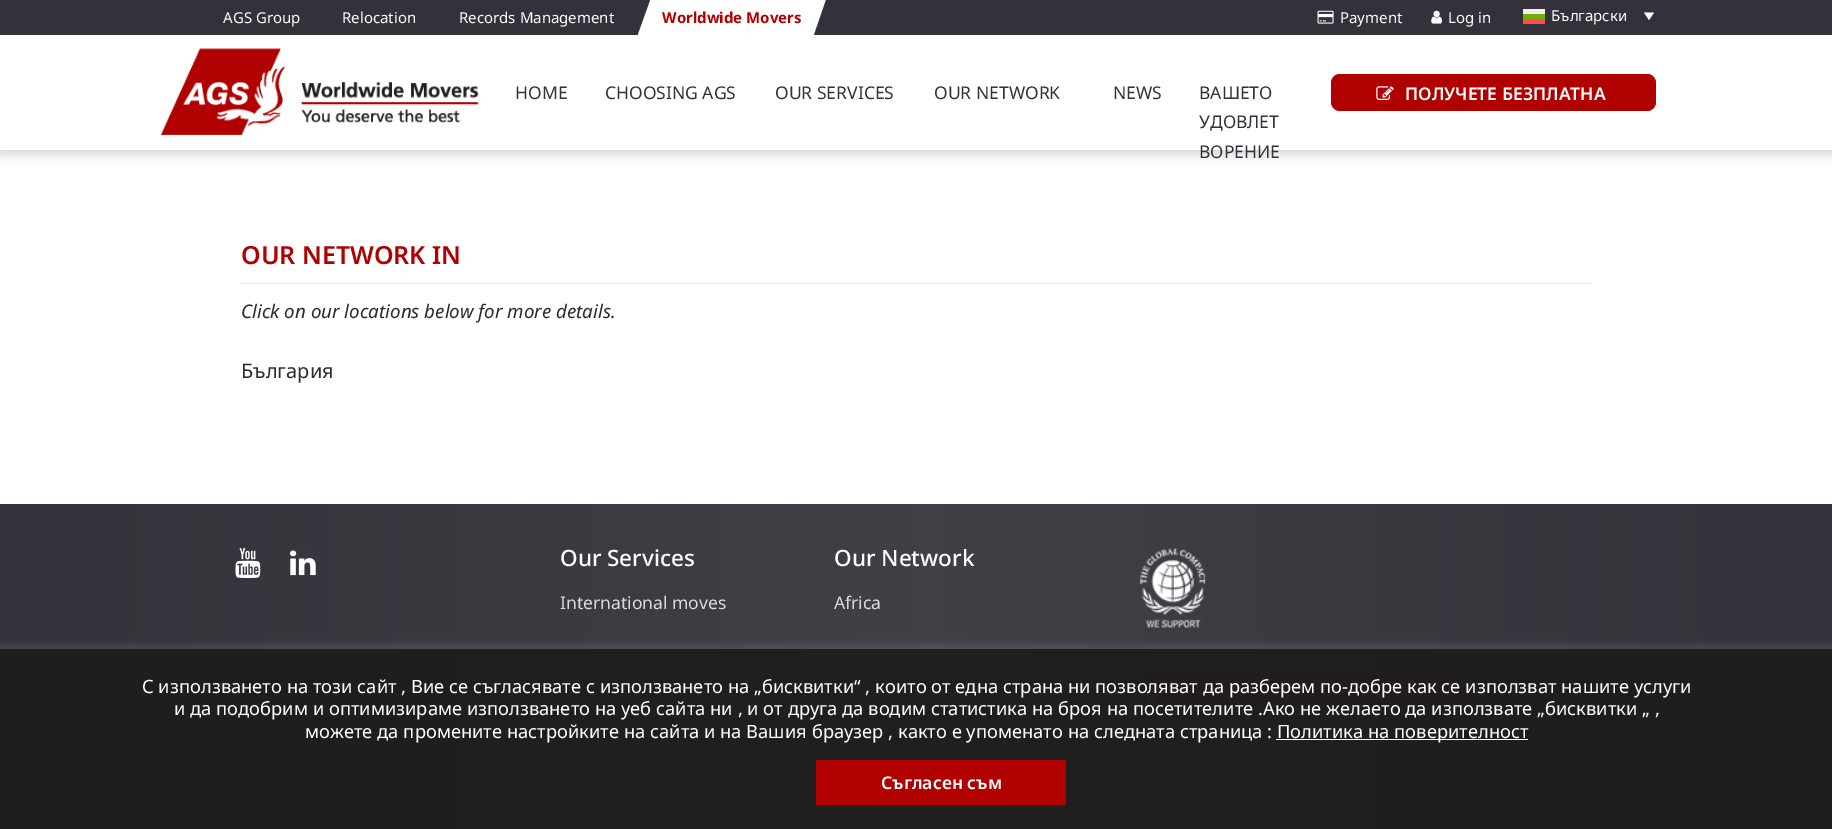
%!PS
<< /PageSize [1832 829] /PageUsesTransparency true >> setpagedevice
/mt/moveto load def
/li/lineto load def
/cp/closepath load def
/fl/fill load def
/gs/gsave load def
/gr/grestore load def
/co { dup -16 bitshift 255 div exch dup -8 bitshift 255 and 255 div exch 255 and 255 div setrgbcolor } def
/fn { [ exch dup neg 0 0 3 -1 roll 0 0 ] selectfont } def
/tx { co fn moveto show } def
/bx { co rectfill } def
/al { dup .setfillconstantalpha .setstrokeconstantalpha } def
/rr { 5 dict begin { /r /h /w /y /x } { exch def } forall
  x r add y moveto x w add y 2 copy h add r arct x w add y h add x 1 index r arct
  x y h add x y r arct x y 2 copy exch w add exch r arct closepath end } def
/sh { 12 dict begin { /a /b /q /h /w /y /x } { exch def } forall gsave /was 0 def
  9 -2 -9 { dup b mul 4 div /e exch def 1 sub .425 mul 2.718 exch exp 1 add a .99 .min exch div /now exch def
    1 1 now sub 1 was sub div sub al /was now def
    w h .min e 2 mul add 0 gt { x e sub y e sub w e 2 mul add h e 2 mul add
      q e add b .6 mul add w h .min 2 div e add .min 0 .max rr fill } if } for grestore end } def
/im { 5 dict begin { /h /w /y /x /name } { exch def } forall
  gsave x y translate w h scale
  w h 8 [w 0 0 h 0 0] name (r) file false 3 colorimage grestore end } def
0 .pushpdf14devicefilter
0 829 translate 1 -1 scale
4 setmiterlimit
0 0 1832 829 16#FFFFFF bx
16#000000 co
0 3 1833 150 0 6 .2 sh
0 35 1832 115 16#FFFFFF bx
0 0 1832 35 16#34313A bx
638 0 188 35 16#FFFFFF bx
16#34313A co
637.5 0 mt 650 0 li 637.5 35 li cp fl
826 35 mt 814 35 li 826 0 li cp fl
(media/1.raw) 1317 10 17 14 im
(media/2.raw) 1431 10 11 14 im
1523 9 22 5 16#F0F0F0 bx
16#FFFFFF co
1644 12.5 mt 1654 12.5 li 1649 20 li cp fl
1523 14 22 5 16#73AF00 bx
1523 19 22 5 16#FF4B55 bx
(media/3.raw) 161 48 318 87 im
16#B00000 co
1331 74 325 37 9 rr fl
(media/4.raw) 1376 86 18 14 im
241 283 1350 1 16#E6E6E6 bx
gs 0 504 mt 1832 504 li 1832 829 li 0 829 li cp clip newpath
<< /ShadingType 2 /ColorSpace /DeviceRGB /Coords [0 747 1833 747] /Extend [true true] /Function << /FunctionType 3 /Domain [0 1] /Functions [<< /FunctionType 2 /Domain [0 1] /C0 [.204 .192 .227] /C1 [.259 .251 .278] /N 1 >> << /FunctionType 2 /Domain [0 1] /C0 [.259 .251 .278] /C1 [.204 .192 .227] /N 1 >>] /Bounds [.5] /Encode [0 1 0 1] >> >> shfill gr
(media/5.raw) 235 548 26 30 im
(media/6.raw) 290 550 26 26 im
(media/7.raw) 1139 548 67 80 im
16#B00000 co
1141 673 325 37 9 rr fl
(media/8.raw) 1141 693 18 15 im
gs
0 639 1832 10 rectclip
16#ACABAB co
0 648 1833 181 0 6 .3 sh
gr
0.98 al
0 649 1832 180 16#1E1E1E bx
1 al
1276 739 252 1 16#FFFFFF bx
816 760 250 45 16#B00000 bx
(AGS Group) 223 23 /NotoSans-Regular 15 16#FFFFFF tx
(Relocation) 342 23 /NotoSans-Regular 15 16#FFFFFF tx
(Records Management) 459 23 /NotoSans-Regular 15 16#FFFFFF tx
(Worldwide Movers) 662 23 /NotoSans-Bold 15 16#B00000 tx
(Payment) 1340 23 /NotoSans-Regular 15 16#FFFFFF tx
(Log in) 1448 23 /NotoSans-Regular 15 16#FFFFFF tx
(Български) 1551 21 /NotoSans-Regular 15 16#FFFFFF tx
(HOME) 515 99 /NotoSans-Regular 17.5 16#34313A tx
(CHOOSING AGS) 605 99 /NotoSans-Regular 17.5 16#34313A tx
(OUR SERVICES) 775 99 /NotoSans-Regular 17.5 16#34313A tx
(OUR NETWORK) 934 99 /NotoSans-Regular 17.5 16#34313A tx
(NEWS) 1113 99 /NotoSans-Regular 17.5 16#34313A tx
(ВАШЕТО) 1199 99 /NotoSans-Regular 17.5 16#34313A tx
(УДОВЛЕТ) 1199 128 /NotoSans-Regular 17.5 16#34313A tx
(ВОРЕНИЕ) 1199 158 /NotoSans-Regular 17.5 16#34313A tx
(ПОЛУЧЕТЕ БЕЗПЛАТНА) 1405 100 /NotoSans-SemiBold 17.5 16#FFFFFF tx
(OUR NETWORK IN) 241 264 /NotoSans-SemiBold 25 16#B00000 tx
(Click on our locations below for more details.) 241 318 /NotoSans-Italic 18.75 16#292B2C tx
(България) 241 378 /NotoSans-Regular 20 16#292B2C tx
(Our Services) 560 566 /NotoSans-Medium 22.5 16#FFFFFF tx
(International moves) 560 609 /NotoSans-Regular 17.5 16#DCDCDC tx
(Our Network) 834 566 /NotoSans-Medium 22.5 16#FFFFFF tx
(Africa) 834 609 /NotoSans-Regular 17.5 16#DCDCDC tx
(С използването на този сайт , Вие се съгласявате с използването на „бисквитки“ , които от една страна ни позволяват да разберем по-добре как се използват нашите услуги) 142 693 /NotoSans-Regular 18.33 16#FFFFFF tx
(и да подобрим и оптимизираме използването на уеб сайта ни , и от друга да водим статистика на броя на посетителите .Ако не желаето да използвате „бисквитки „ ,) 174 715 /NotoSans-Regular 18.33 16#FFFFFF tx
(можете да промените настройките на сайта и на Вашия браузер , както е упоменато на следната страница :) 305 738 /NotoSans-Regular 18.33 16#FFFFFF tx
(Политика на поверителност) 1277 738 /NotoSans-Regular 18.33 16#FFFFFF tx
(Съгласен съм) 881 789 /NotoSans-SemiBold 17.5 16#FFFFFF tx
.poppdf14devicefilter showpage
